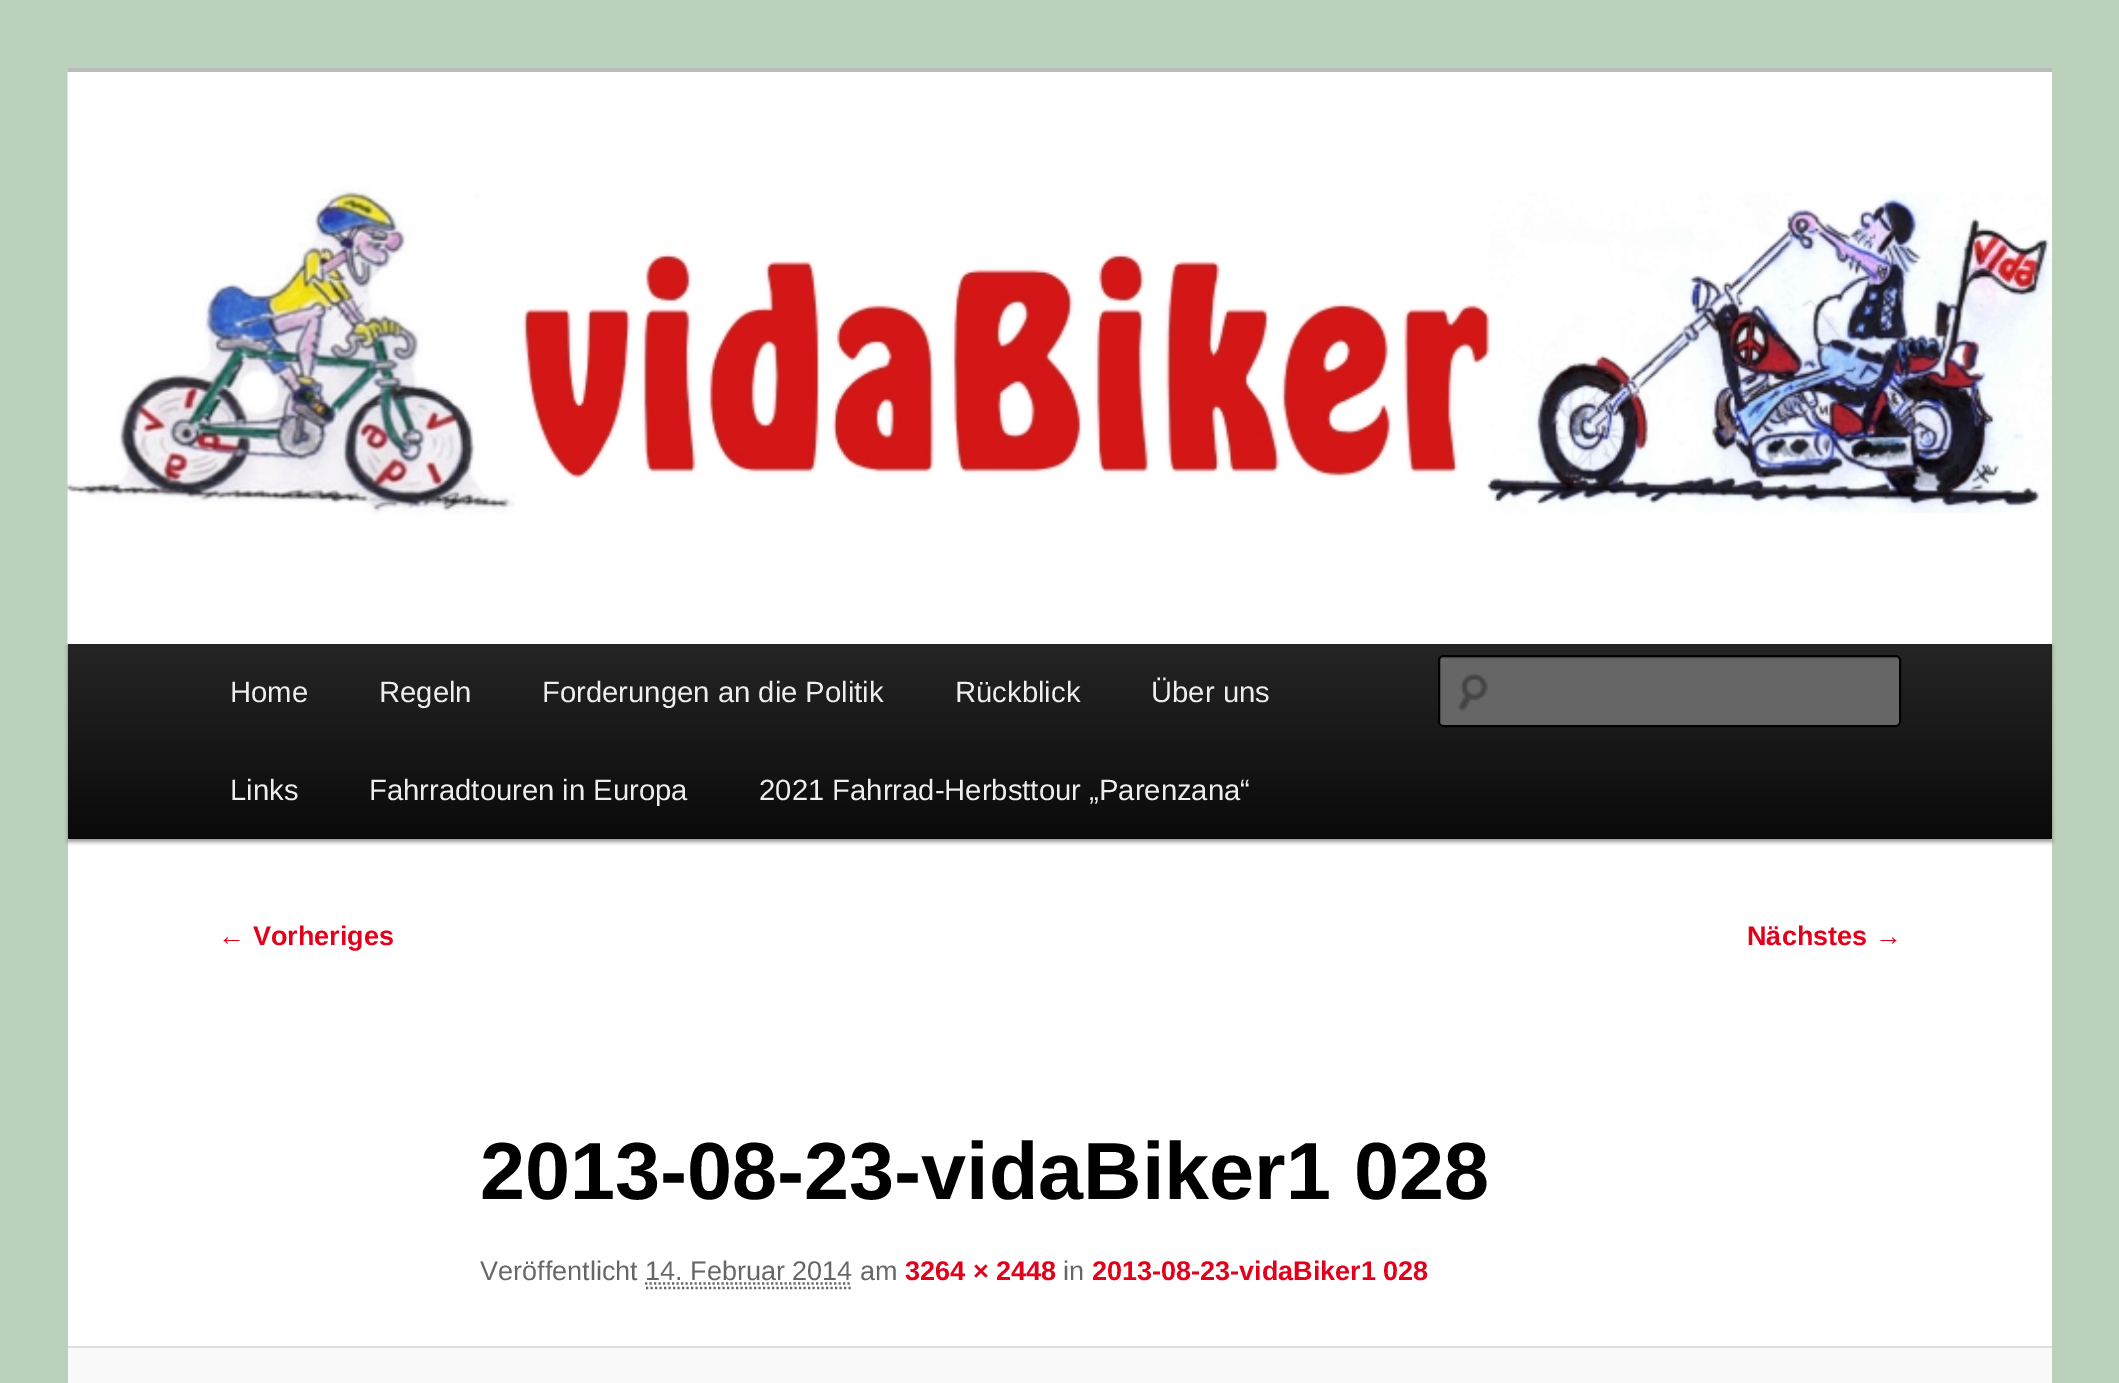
%!PS
<< /PageSize [2119 1383] /PageUsesTransparency true >> setpagedevice
/mt/moveto load def
/li/lineto load def
/ct/curveto load def
/cp/closepath load def
/fl/fill load def
/st/stroke load def
/gs/gsave load def
/gr/grestore load def
/lw/setlinewidth load def
/co { dup -16 bitshift 255 div exch dup -8 bitshift 255 and 255 div exch 255 and 255 div setrgbcolor } def
/fn { [ exch dup neg 0 0 3 -1 roll 0 0 ] selectfont } def
/tx { co fn moveto show } def
/bx { co rectfill } def
/al { dup .setfillconstantalpha .setstrokeconstantalpha } def
/rr { 5 dict begin { /r /h /w /y /x } { exch def } forall
  x r add y moveto x w add y 2 copy h add r arct x w add y h add x 1 index r arct
  x y h add x y r arct x y 2 copy exch w add exch r arct closepath end } def
/sh { 12 dict begin { /a /b /q /h /w /y /x } { exch def } forall gsave /was 0 def
  9 -2 -9 { dup b mul 4 div /e exch def 1 sub .425 mul 2.718 exch exp 1 add a .99 .min exch div /now exch def
    1 1 now sub 1 was sub div sub al /was now def
    w h .min e 2 mul add 0 gt { x e sub y e sub w e 2 mul add h e 2 mul add
      q e add b .6 mul add w h .min 2 div e add .min 0 .max rr fill } if } for grestore end } def
/im { 5 dict begin { /h /w /y /x /name } { exch def } forall
  gsave x y translate w h scale
  w h 8 [w 0 0 h 0 0] name (r) file false 3 colorimage grestore end } def
0 .pushpdf14devicefilter
0 1383 translate 1 -1 scale
4 setmiterlimit
0 0 2119 1383 16#BCD1BC bx
68 643 1984 703 16#FFFFFF bx
68 68 1984 4 16#BBBBBB bx
16#000000 co
68 646 1984 196 0 2 .4 sh
(media/1.raw) 67 72 1985 572 im
gs 68 644 mt 2052 644 li 2052 839 li 68 839 li cp clip newpath
<< /ShadingType 2 /ColorSpace /DeviceRGB /Coords [1060 643 1060 839] /Extend [true true] /Function << /FunctionType 2 /Domain [0 1] /C0 [.145 .145 .145] /C1 [.039 .039 .039] /N 1 >> >> shfill gr
16#666666 co
1438 655 463 72 5 rr fl
(media/2.raw) 1458 673 30 39 im
16#5C5C5C co
1442 659 mt 1897 659 li 1898 659 1899 660 1899 662 ct 1899 659 li 1899 658 1898 657 1897 657 ct 1442 657 li 1441 657 1440 658 1440 659 ct 1440 662 li 1440 660 1441 659 1442 659 ct cp fl
16#000000 co
2 lw
1439 656 461 70 4 rr st
16#666666 co
2.2 lw
[2.25 2.25] 0 setdash
645 1283.5 mt 852 1283.5 li st
646 1288 mt 853 1288 li st
68 1348 1984 35 16#F9F9F9 bx
68 1346 1984 2 16#DDDDDD bx
(Home) 230 702 /LiberationSans-Regular 29.25 16#EEEEEE tx
(Regeln) 379 702 /LiberationSans-Regular 29.25 16#EEEEEE tx
(Forderungen an die Politik) 542 702 /LiberationSans-Regular 29.25 16#EEEEEE tx
(Rückblick) 955 702 /LiberationSans-Regular 29.25 16#EEEEEE tx
(Über uns) 1151 702 /LiberationSans-Regular 29.25 16#EEEEEE tx
(Links) 230 800 /LiberationSans-Regular 29.25 16#EEEEEE tx
(Fahrradtouren in Europa) 369 800 /LiberationSans-Regular 29.25 16#EEEEEE tx
(2021 Fahrrad-Herbsttour „Parenzana“) 759 800 /LiberationSans-Regular 29.25 16#EEEEEE tx
(← Vorheriges) 218 945 /LiberationSans-Bold 27 16#E2001A tx
(Nächstes →) 1747 945 /LiberationSans-Bold 27 16#E2001A tx
(2013-08-23-vidaBiker1 028) 480 1199 /LiberationSans-Bold 81 16#000000 tx
(Veröffentlicht 14. Februar 2014 am) 480 1280 /LiberationSans-Regular 27 16#666666 tx
(3264 × 2448) 905 1280 /LiberationSans-Bold 27 16#E2001A tx
(in) 1063 1280 /LiberationSans-Regular 27 16#666666 tx
(2013-08-23-vidaBiker1 028) 1092 1280 /LiberationSans-Bold 27 16#E2001A tx
.poppdf14devicefilter showpage
